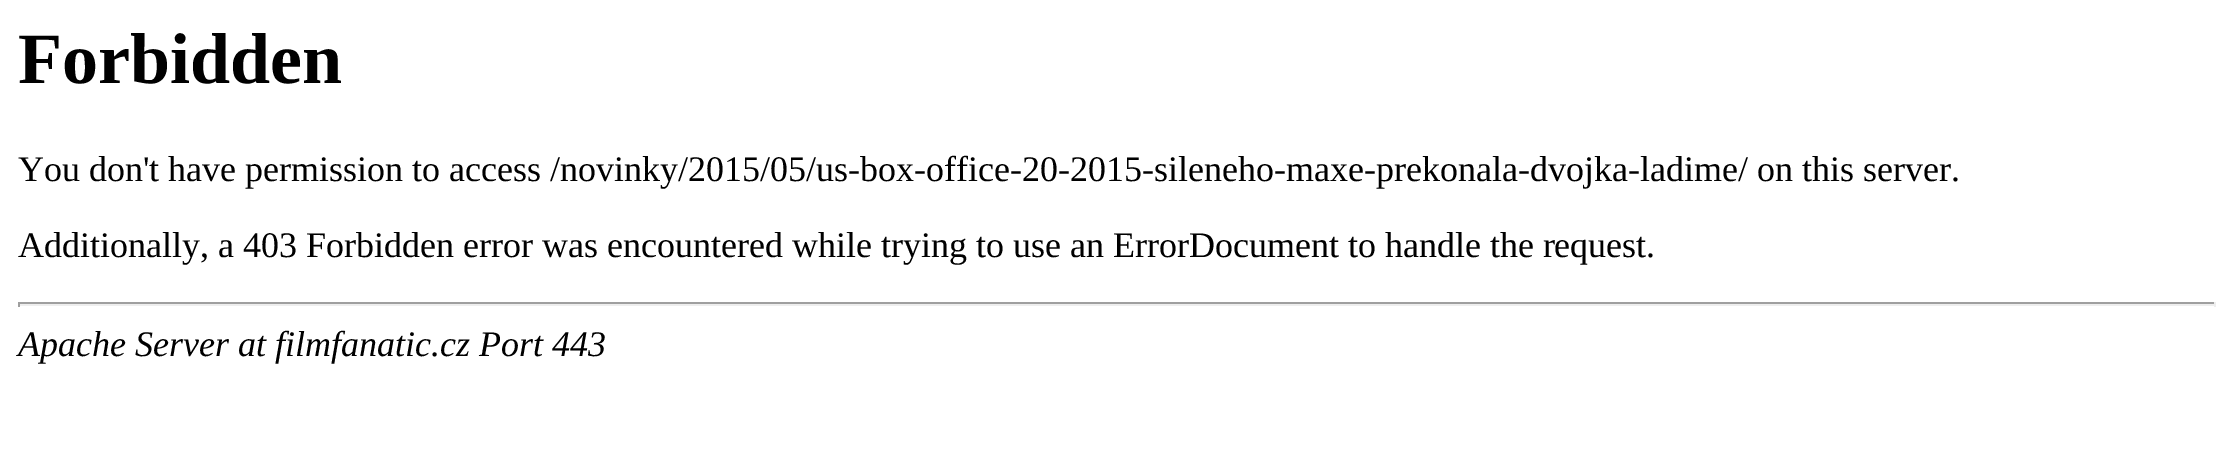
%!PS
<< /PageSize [2233 451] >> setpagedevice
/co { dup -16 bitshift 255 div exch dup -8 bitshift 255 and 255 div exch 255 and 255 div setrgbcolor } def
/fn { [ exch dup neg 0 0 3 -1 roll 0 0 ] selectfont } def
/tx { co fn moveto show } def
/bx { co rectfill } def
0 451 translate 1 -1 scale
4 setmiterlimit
0 0 2233 451 16#FFFFFF bx
18 302 2198 2 16#9F9F9F bx
2214 302 2 5 16#EEEEEE bx
18 304 2198 2 16#EEEEEE bx
18 302 2 5 16#9F9F9F bx
(Forbidden) 18 83 /LiberationSerif-Bold 72 16#000000 tx
(You don't have permission to access /novinky/2015/05/us-box-office-20-2015-sileneho-maxe-prekonala-dvojka-ladime/ on this server.) 18 181 /LiberationSerif-Regular 36 16#000000 tx
(Additionally, a 403 Forbidden error was encountered while trying to use an ErrorDocument to handle the request.) 18 257 /LiberationSerif-Regular 36 16#000000 tx
(Apache Server at filmfanatic.cz Port 443) 18 356 /LiberationSerif-Italic 36 16#000000 tx
showpage
